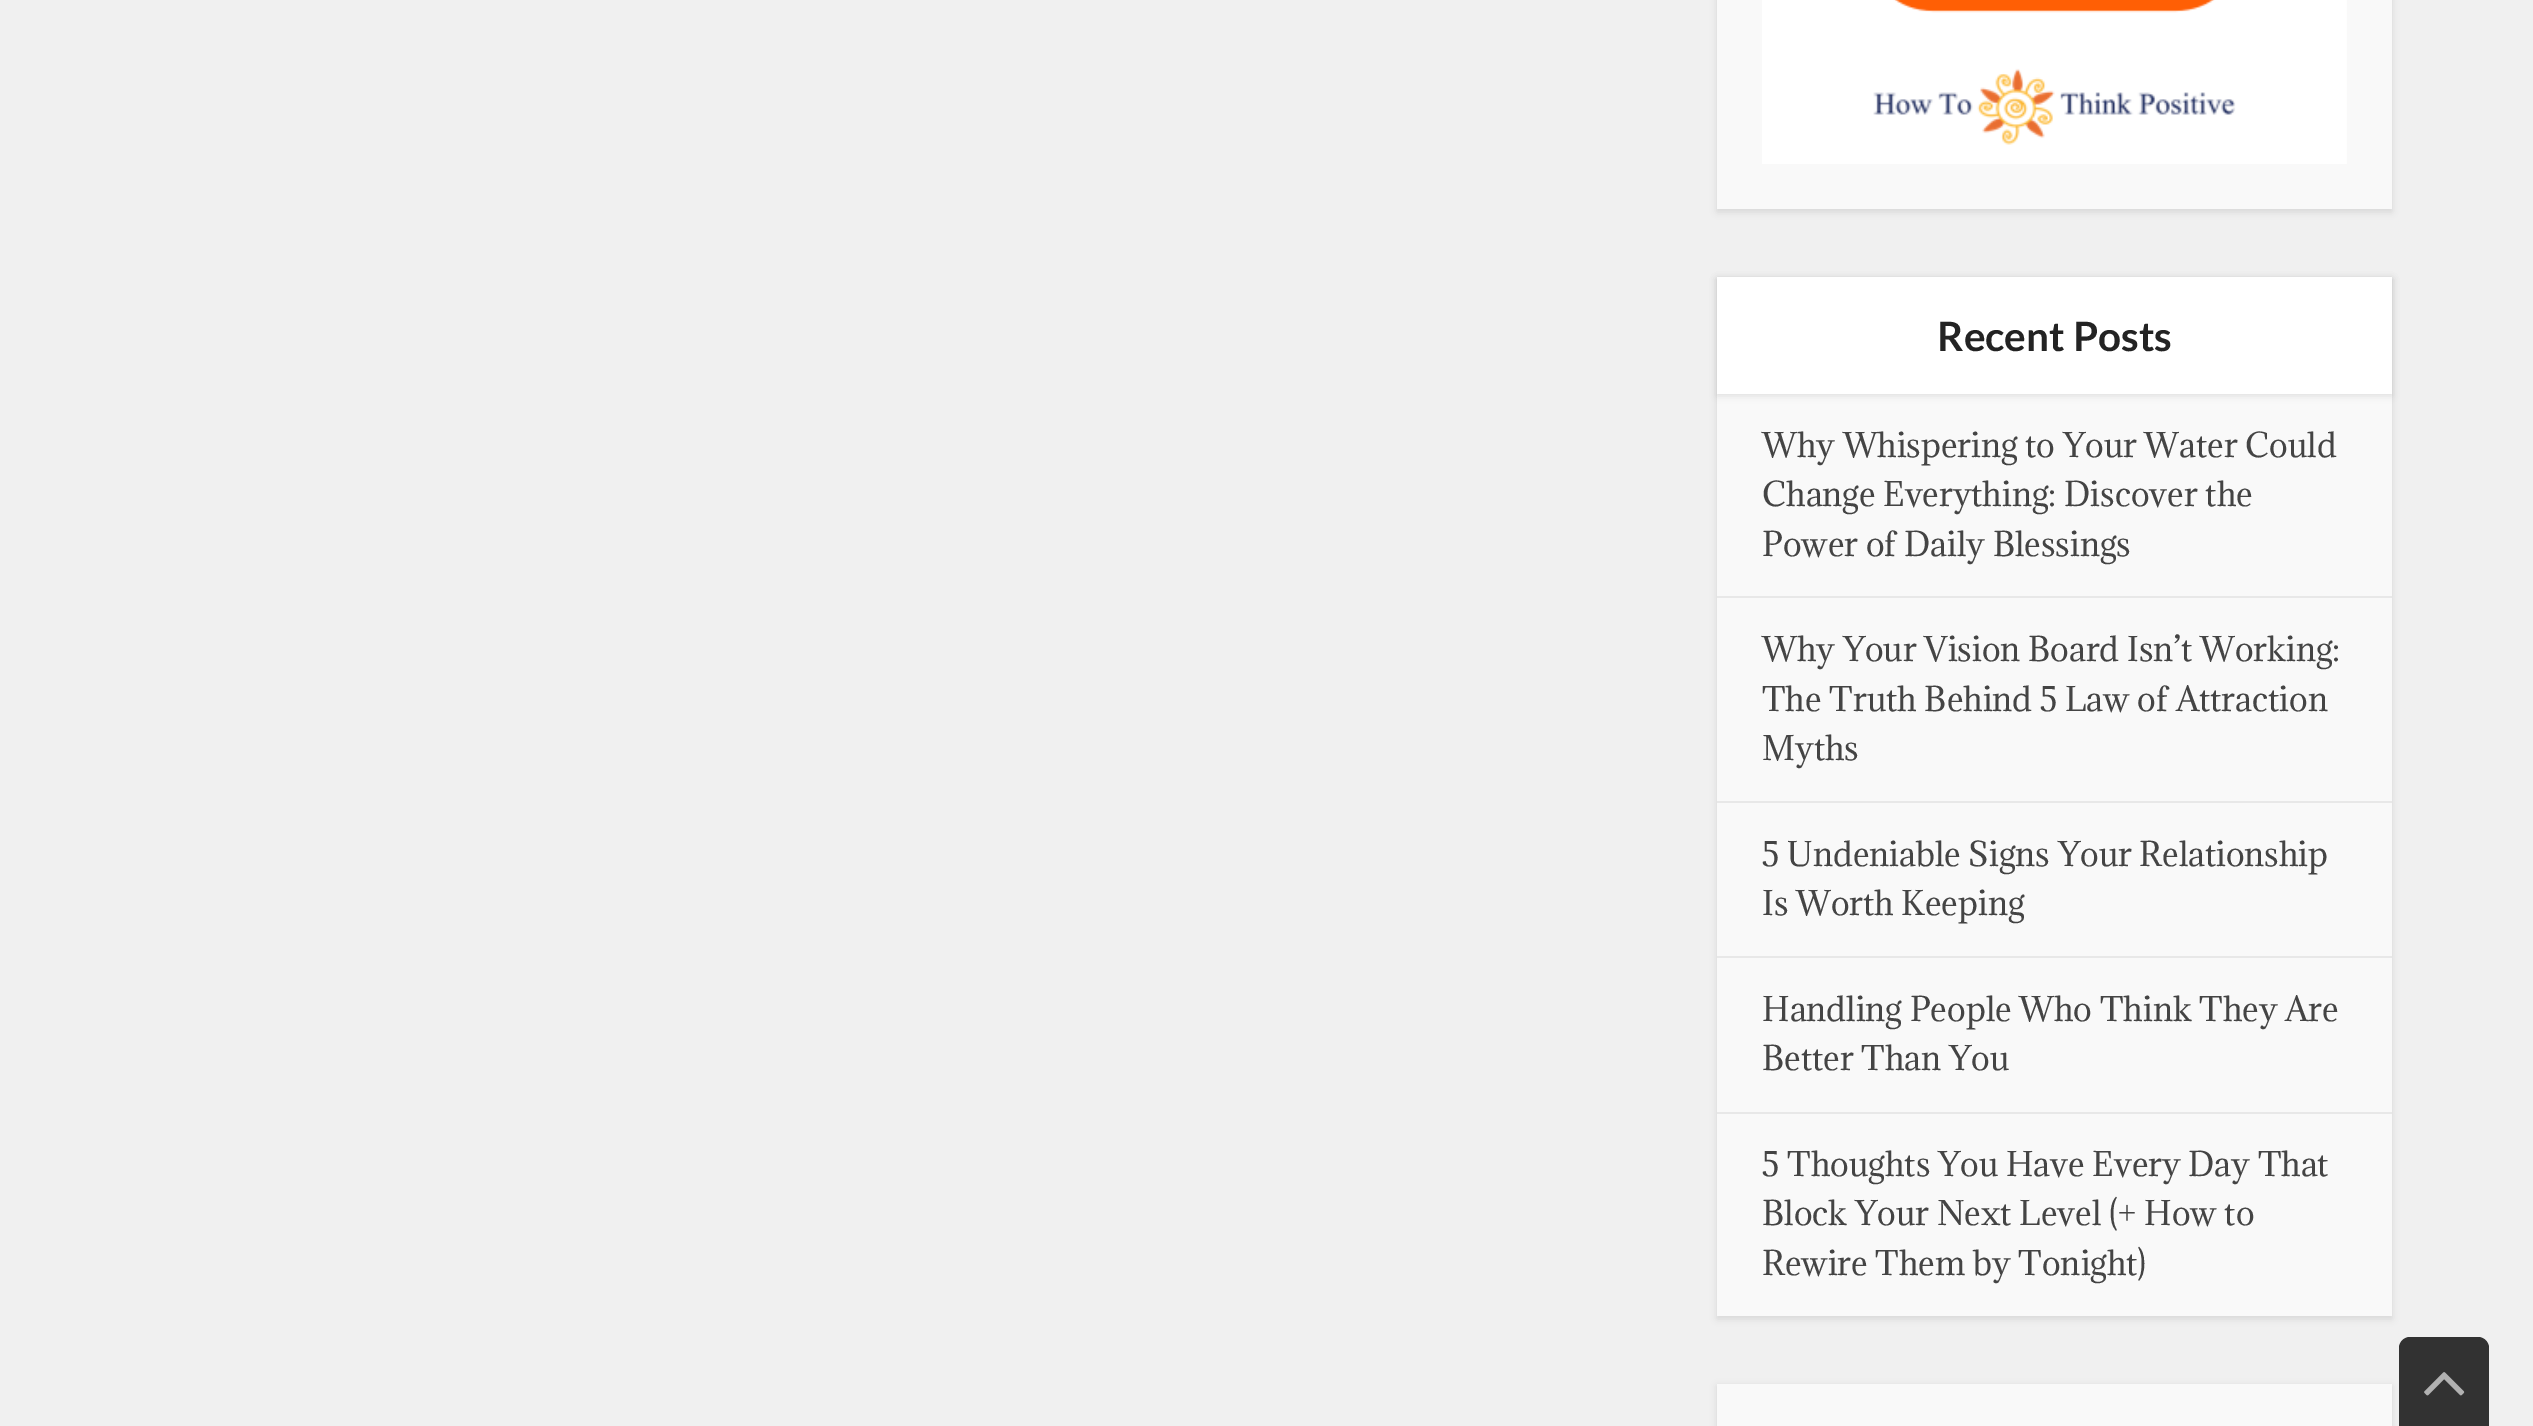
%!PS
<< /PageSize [2533 1426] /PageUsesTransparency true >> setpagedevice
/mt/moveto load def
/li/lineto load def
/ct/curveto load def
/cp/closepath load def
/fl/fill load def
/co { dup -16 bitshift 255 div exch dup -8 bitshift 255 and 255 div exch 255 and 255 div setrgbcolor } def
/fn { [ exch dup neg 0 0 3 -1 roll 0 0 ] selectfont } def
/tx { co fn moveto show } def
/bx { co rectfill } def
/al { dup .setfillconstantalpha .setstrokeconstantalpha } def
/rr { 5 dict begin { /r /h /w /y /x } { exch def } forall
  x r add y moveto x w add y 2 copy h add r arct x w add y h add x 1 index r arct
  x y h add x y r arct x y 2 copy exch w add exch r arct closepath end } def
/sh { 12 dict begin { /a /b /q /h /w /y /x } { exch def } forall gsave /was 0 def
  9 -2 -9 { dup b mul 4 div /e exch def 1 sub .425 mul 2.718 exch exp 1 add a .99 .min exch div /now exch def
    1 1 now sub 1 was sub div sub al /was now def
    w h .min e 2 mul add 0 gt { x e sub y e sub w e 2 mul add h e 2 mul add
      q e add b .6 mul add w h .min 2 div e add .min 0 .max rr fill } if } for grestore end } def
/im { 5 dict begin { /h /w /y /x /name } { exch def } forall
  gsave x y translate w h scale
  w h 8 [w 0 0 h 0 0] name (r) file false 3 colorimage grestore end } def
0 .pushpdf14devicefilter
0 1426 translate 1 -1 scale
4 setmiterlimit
0 0 2533 1426 16#F0F0F0 bx
16#000000 co
1717 -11 675 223 0 3.5 .1 sh
1717 0 675 209 16#F9F9F9 bx
(media/1.raw) 1762 0 585 164 im
16#000000 co
1717 279 675 1040 0 3.5 .1 sh
1717 394 675 922 16#F9F9F9 bx
16#000000 co
1717 279 675 117 0 3.5 .1 sh
1717 277 675 117 16#FFFFFF bx
1717 596 675 2 16#E8E8E8 bx
1717 801 675 2 16#E8E8E8 bx
1717 956 675 2 16#E8E8E8 bx
1717 1112 675 2 16#E8E8E8 bx
16#000000 co
1717 1386 675 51 0 3.5 .1 sh
1717 1384 675 42 16#F9F9F9 bx
16#323232 co
2410 1337 mt 2478 1337 li 2484 1337 2489 1342 2489 1348 ct 2489 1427 li 2399 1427 li 2399 1348 li 2399 1342 2404 1337 2410 1337 ct cp fl
(media/2.raw) 2424 1372 41 24 im
(Recent Posts) 1937 351 /Lato-Bold 40.5 16#232323 tx
(Why Whispering to Your Water Could) 1762 457 /Adamina-Regular 31.5 16#444444 tx
(Change Everything: Discover the) 1762 506 /Adamina-Regular 31.5 16#444444 tx
(Power of Daily Blessings) 1762 556 /Adamina-Regular 31.5 16#444444 tx
(Why Your Vision Board Isn’t Working:) 1762 661 /Adamina-Regular 31.5 16#444444 tx
(The Truth Behind 5 Law of Attraction) 1762 711 /Adamina-Regular 31.5 16#444444 tx
(Myths) 1762 760 /Adamina-Regular 31.5 16#444444 tx
(5 Undeniable Signs Your Relationship) 1762 866 /Adamina-Regular 31.5 16#444444 tx
(Is Worth Keeping) 1762 915 /Adamina-Regular 31.5 16#444444 tx
(Handling People Who Think They Are) 1762 1021 /Adamina-Regular 31.5 16#444444 tx
(Better Than You) 1762 1070 /Adamina-Regular 31.5 16#444444 tx
(5 Thoughts You Have Every Day That) 1762 1176 /Adamina-Regular 31.5 16#444444 tx
(Block Your Next Level \(+ How to) 1762 1225 /Adamina-Regular 31.5 16#444444 tx
(Rewire Them by Tonight\)) 1762 1275 /Adamina-Regular 31.5 16#444444 tx
.poppdf14devicefilter showpage
